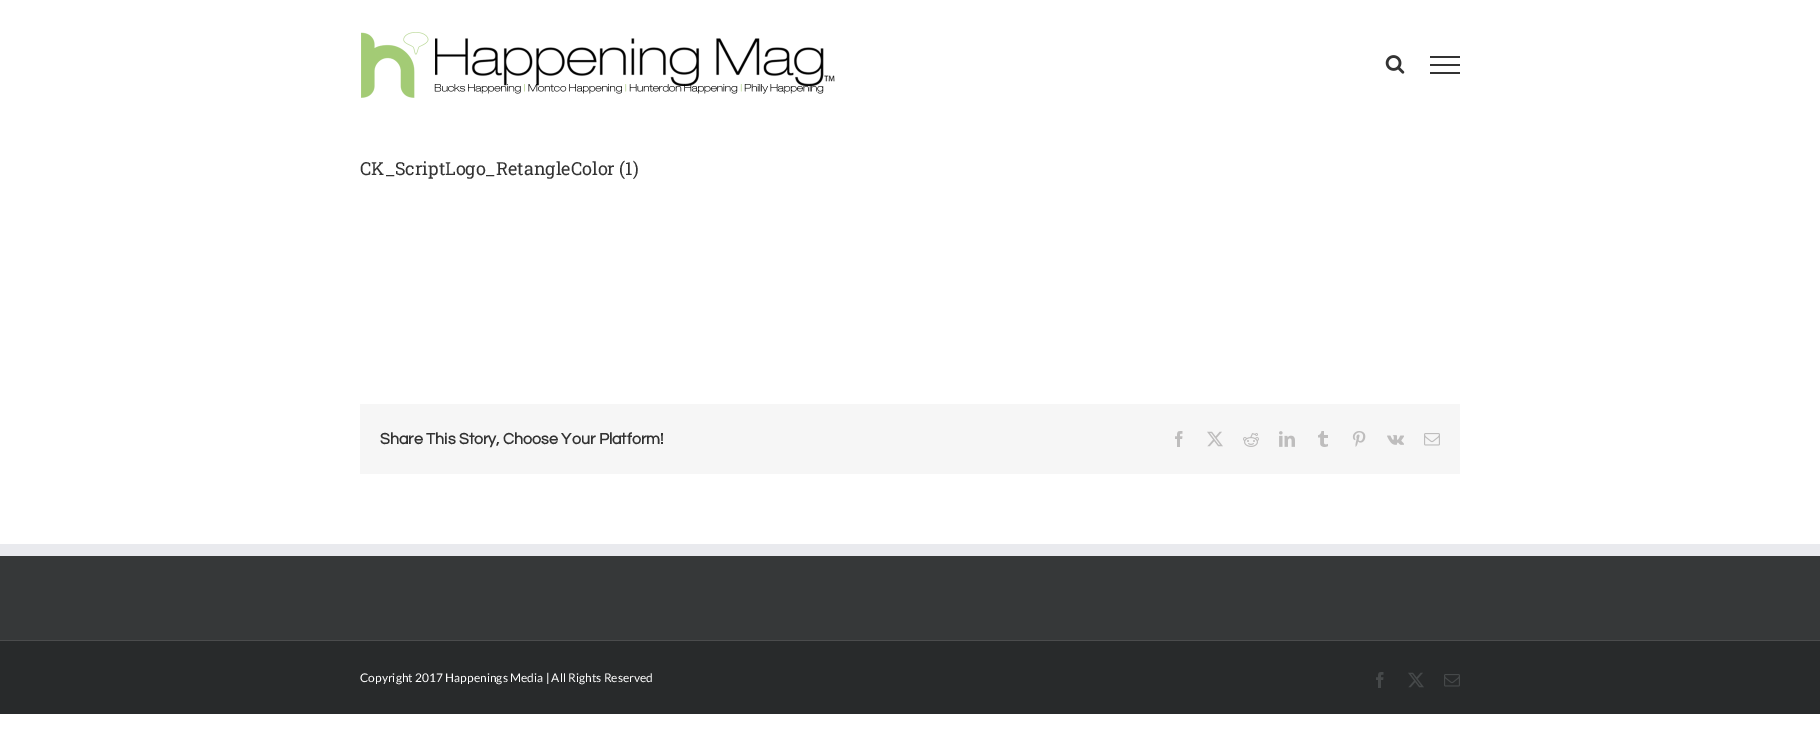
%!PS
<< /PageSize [1820 740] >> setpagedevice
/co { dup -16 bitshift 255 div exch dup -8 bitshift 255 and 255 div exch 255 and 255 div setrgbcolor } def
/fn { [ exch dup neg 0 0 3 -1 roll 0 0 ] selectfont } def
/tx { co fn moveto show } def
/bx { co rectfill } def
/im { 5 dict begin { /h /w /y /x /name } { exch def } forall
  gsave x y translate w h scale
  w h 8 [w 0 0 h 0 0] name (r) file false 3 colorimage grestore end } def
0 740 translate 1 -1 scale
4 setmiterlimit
0 0 1820 740 16#FFFFFF bx
(media/1.raw) 361 32 474 66 im
(media/2.raw) 1385 55 20 19 im
1430 56 30 2 16#333333 bx
1430 64 30 2 16#333333 bx
1430 72 30 2 16#333333 bx
360 404 1100 70 16#F6F6F6 bx
(media/3.raw) 1175 431 8 16 im
(media/4.raw) 1207 431 16 16 im
(media/5.raw) 1243 433 16 14 im
(media/6.raw) 1279 431 16 16 im
(media/7.raw) 1318 431 10 16 im
(media/8.raw) 1352 431 14 16 im
(media/9.raw) 1387 435 17 10 im
(media/10.raw) 1424 433 16 13 im
0 556 1820 84 16#363839 bx
0 544 1820 12 16#E9EAEE bx
0 641 1820 73 16#282A2B bx
0 640 1820 1 16#4B4C4D bx
(media/11.raw) 1376 672 8 16 im
(media/12.raw) 1408 672 16 16 im
(media/13.raw) 1444 674 16 13 im
(CK_ScriptLogo_RetangleColor \(1\)) 360 175 /RobotoSlab-Regular 18 16#333333 tx
(Share This Story, Choose Your Platform!) 380 444 /Questrial-Bold 16 16#333333 tx
(Copyright 2017 Happenings Media | All Rights Reserved) 360 682 /Lato-Regular 12 16#FFFFFF tx
showpage
